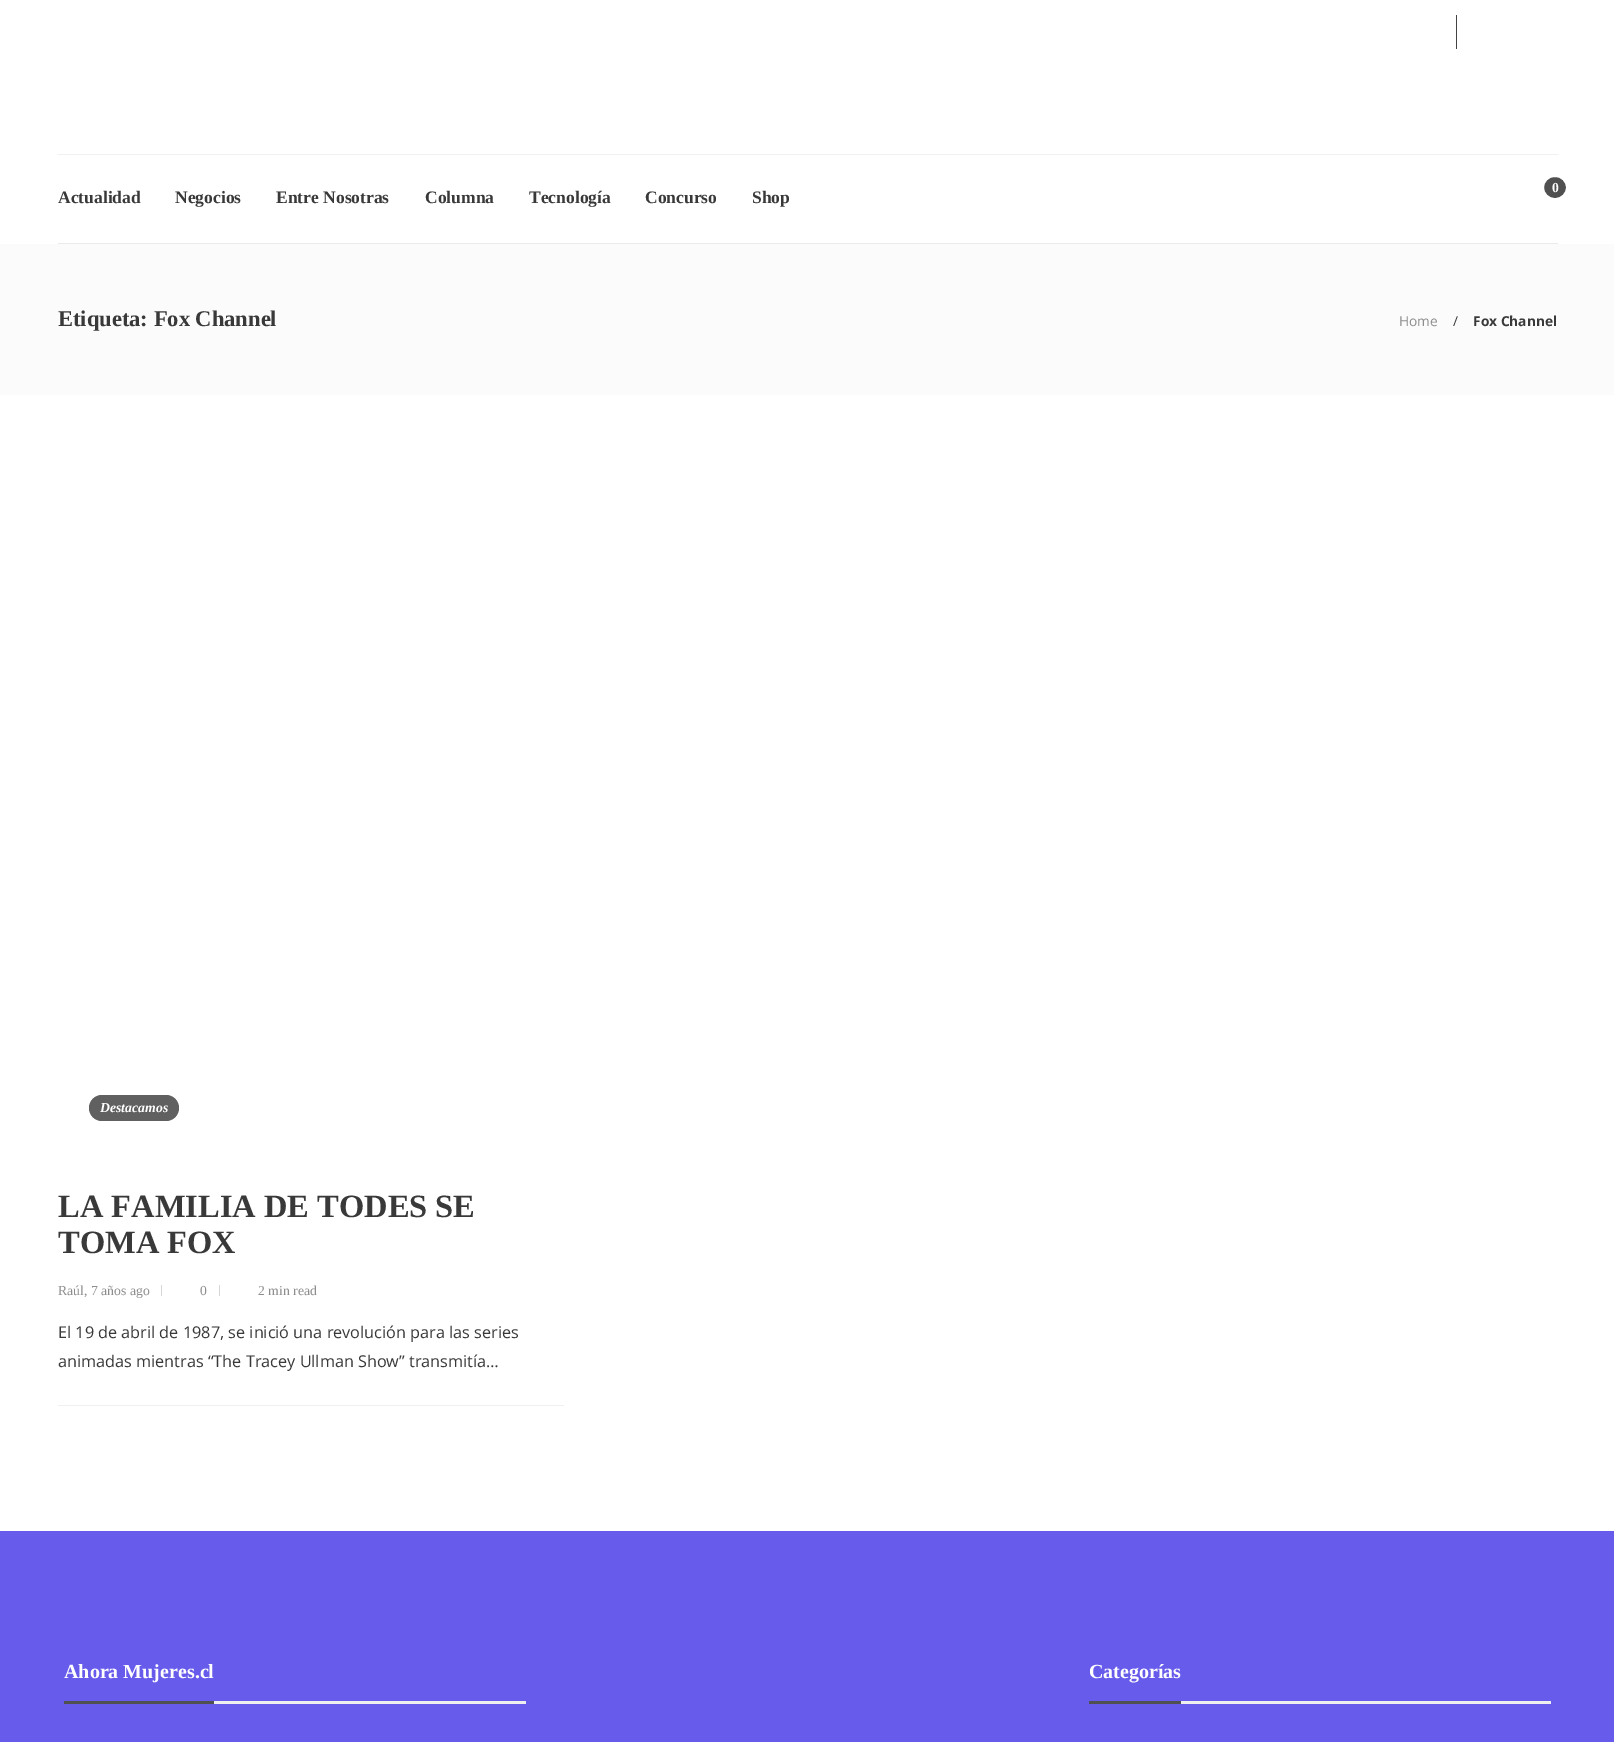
%!PS
<< /PageSize [1614 1742] >> setpagedevice
/fl/fill load def
/st/stroke load def
/gs/gsave load def
/gr/grestore load def
/lw/setlinewidth load def
/co { dup -16 bitshift 255 div exch dup -8 bitshift 255 and 255 div exch 255 and 255 div setrgbcolor } def
/fn { [ exch dup neg 0 0 3 -1 roll 0 0 ] selectfont } def
/tx { co fn moveto show } def
/bx { co rectfill } def
/rr { 5 dict begin { /r /h /w /y /x } { exch def } forall
  x r add y moveto x w add y 2 copy h add r arct x w add y h add x 1 index r arct
  x y h add x y r arct x y 2 copy exch w add exch r arct closepath end } def
0 1742 translate 1 -1 scale
4 setmiterlimit
0 0 1614 1742 16#FFFFFF bx
1456 15 1 34 16#434343 bx
58 154 1500 1 16#F1F1F1 bx
58 243 1500 1 16#EBEBEB bx
16#505050 co
1542.5 175.5 25 24 12 rr gs fl gr
16#FFFFFF co
3 lw
st
0 244 1614 151 16#FBFBFB bx
58 1405 506 1 16#F0F0F0 bx
16#606060 co
89 1095 90 26 13 rr fl
161 1285 1 11 16#D6D6D6 bx
219 1285 1 11 16#D6D6D6 bx
0 1531 1614 211 16#675BEB bx
214 1701 312 3 16#EEEEEE bx
64 1701 150 3 16#505050 bx
1181 1701 370 3 16#EEEEEE bx
1089 1701 92 3 16#505050 bx
(0) 1552 192 /LiberationSerif-Bold 13.75 16#FFFFFF tx
(Actualidad) 58 203 /LiberationSerif-Bold 17.5 16#393939 tx
(Negocios) 175 203 /LiberationSerif-Bold 17.5 16#393939 tx
(Entre Nosotras) 276 203 /LiberationSerif-Bold 17.5 16#393939 tx
(Columna) 425 203 /LiberationSerif-Bold 17.5 16#393939 tx
(Tecnología) 529 203 /LiberationSerif-Bold 17.5 16#393939 tx
(Concurso) 645 203 /LiberationSerif-Bold 17.5 16#393939 tx
(Shop) 752 203 /LiberationSerif-Bold 17.5 16#393939 tx
(Etiqueta: Fox Channel) 58 326 /LiberationSerif-Bold 22.5 16#393939 tx
(Home) 1399 326 /OpenSans-Regular 13.75 16#8D8D8D tx
(/) 1453 326 /OpenSans-Regular 13.75 16#393939 tx
(Fox Channel) 1473 326 /OpenSans-Bold 13.75 16#393939 tx
(Destacamos) 100 1112 /LiberationSerif-BoldItalic 13.75 16#FFFFFF tx
(LA FAMILIA DE TODES SE) 58 1217 /LiberationSerif-Bold 32.5 16#393939 tx
(TOMA FOX) 58 1253 /LiberationSerif-Bold 32.5 16#393939 tx
(Raúl, 7 años ago) 58 1295 /LiberationSerif-Regular 13.75 16#8D8D8D tx
(0) 200 1295 /LiberationSerif-Regular 13.75 16#8D8D8D tx
(2 min read) 258 1295 /LiberationSerif-Regular 13.75 16#8D8D8D tx
(El 19 de abril de 1987, se inició una revolución para las series) 58 1338 /OpenSans-Regular 16.25 16#393939 tx
(animadas mientras “The Tracey Ullman Show” transmitía…) 58 1367 /OpenSans-Regular 16.25 16#393939 tx
(Ahora Mujeres.cl) 64 1678 /LiberationSerif-Bold 20 16#FFFFFF tx
(Categorías) 1089 1678 /LiberationSerif-Bold 20 16#FFFFFF tx
showpage
